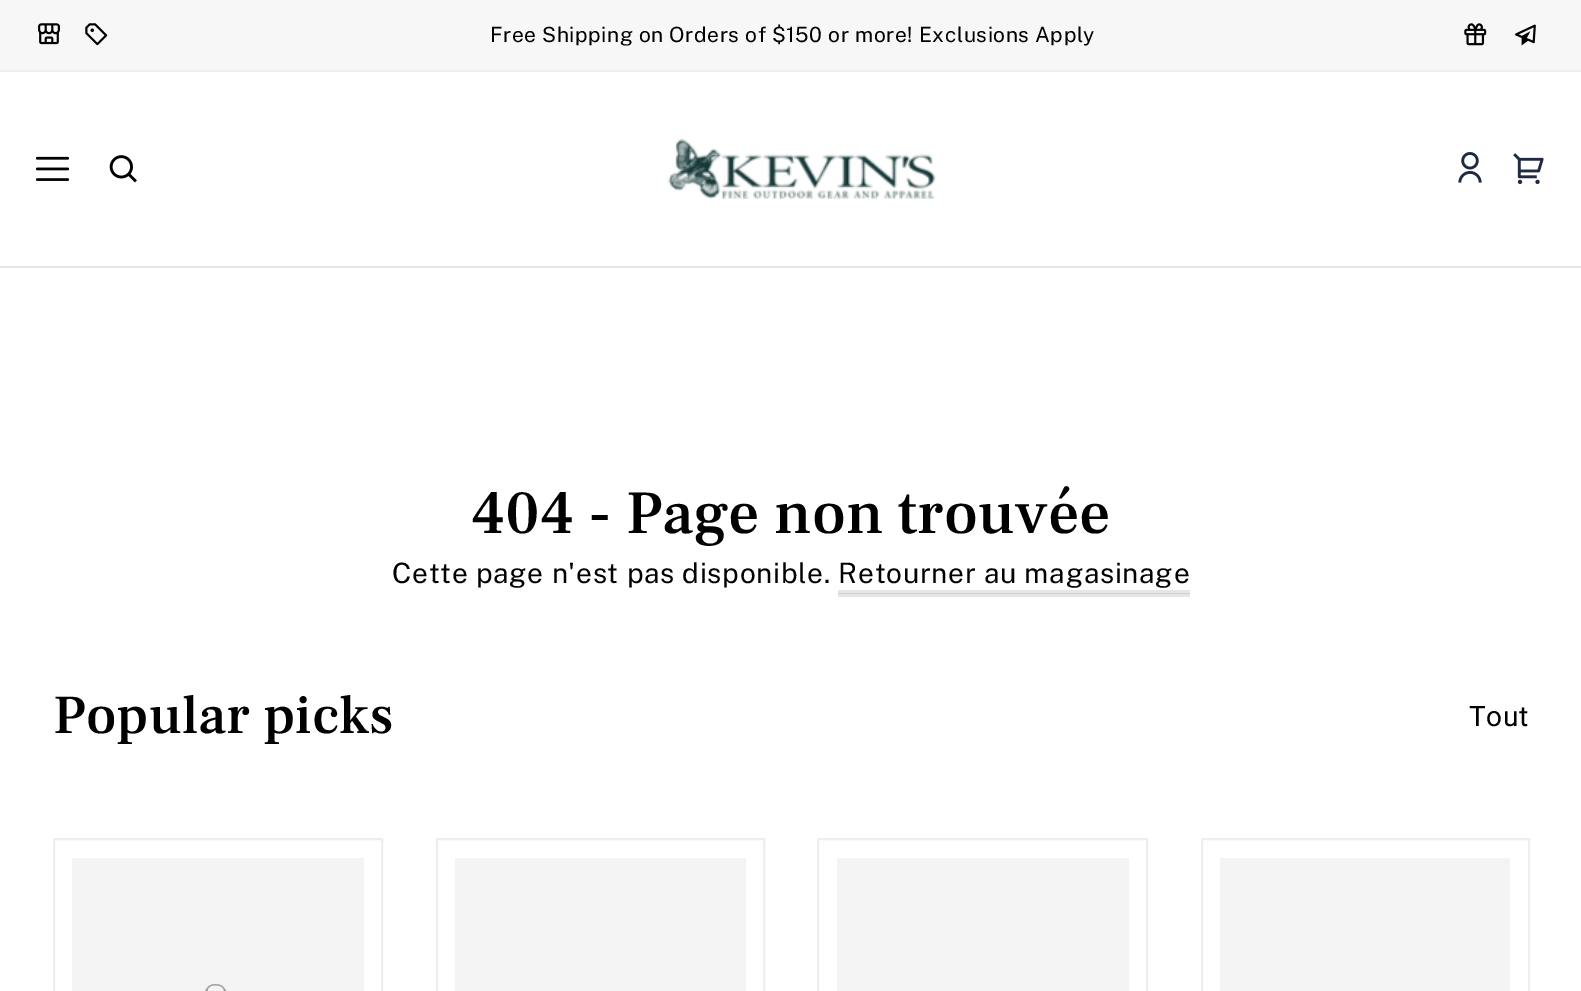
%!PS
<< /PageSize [1581 991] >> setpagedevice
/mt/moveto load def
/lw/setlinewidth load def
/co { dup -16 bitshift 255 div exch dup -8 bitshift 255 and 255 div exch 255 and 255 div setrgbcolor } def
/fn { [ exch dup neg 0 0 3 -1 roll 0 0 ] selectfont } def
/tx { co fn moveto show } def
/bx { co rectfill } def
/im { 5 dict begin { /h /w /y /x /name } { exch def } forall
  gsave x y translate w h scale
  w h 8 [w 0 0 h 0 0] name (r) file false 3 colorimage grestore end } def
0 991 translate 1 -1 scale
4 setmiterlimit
0 0 1581 991 16#FFFFFF bx
838 594 352 3 16#E6E6E6 bx
0 0 1581 70 16#F7F7F7 bx
0 70 1581 2 16#ECEEF0 bx
(media/1.raw) 38 23 22 22 im
(media/2.raw) 85 23 23 23 im
(media/3.raw) 1464 23 23 23 im
(media/4.raw) 1515 24 21 22 im
0 266 1581 2 16#E8E8E1 bx
(media/5.raw) 36 156 33 25 im
(media/6.raw) 109 155 28 28 im
(media/7.raw) 668 138 268 61 im
(media/8.raw) 1458 152 24 31 im
(media/9.raw) 1513 153 31 32 im
838 590 352 3 16#E6E6E6 bx
838 593 352 1 16#CFCFCF bx
16#ECEEF0 co
2 lw
54 839 328 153 rectstroke
72 858 292 133 16#F4F4F4 bx
(media/10.raw) 205 984 22 7 im
16#ECEEF0 co
437 839 327 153 rectstroke
455 858 291 133 16#F4F4F4 bx
16#ECEEF0 co
818 839 329 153 rectstroke
837 858 292 133 16#F4F4F4 bx
16#ECEEF0 co
1202 839 327 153 rectstroke
1220 858 290 133 16#F4F4F4 bx
/PublicSans-Regular 21 fn
16#000000 co
490 42 mt .53 0 (Free Shipping on Orders of $150 or more! Exclusions Apply) ashow
(404 - Page non trouvée) 471 533 /FrankRuhlLibre-Medium 61.25 16#000000 tx
/PublicSans-Regular 28 fn
392 583 mt .7 0 (Cette page n'est pas disponible. Retourner au magasinage) ashow
(Popular picks) 53 733 /FrankRuhlLibre-Medium 55 16#000000 tx
/Roboto-Regular 28 fn
1469 726 mt .7 0 (Tout) ashow
showpage
